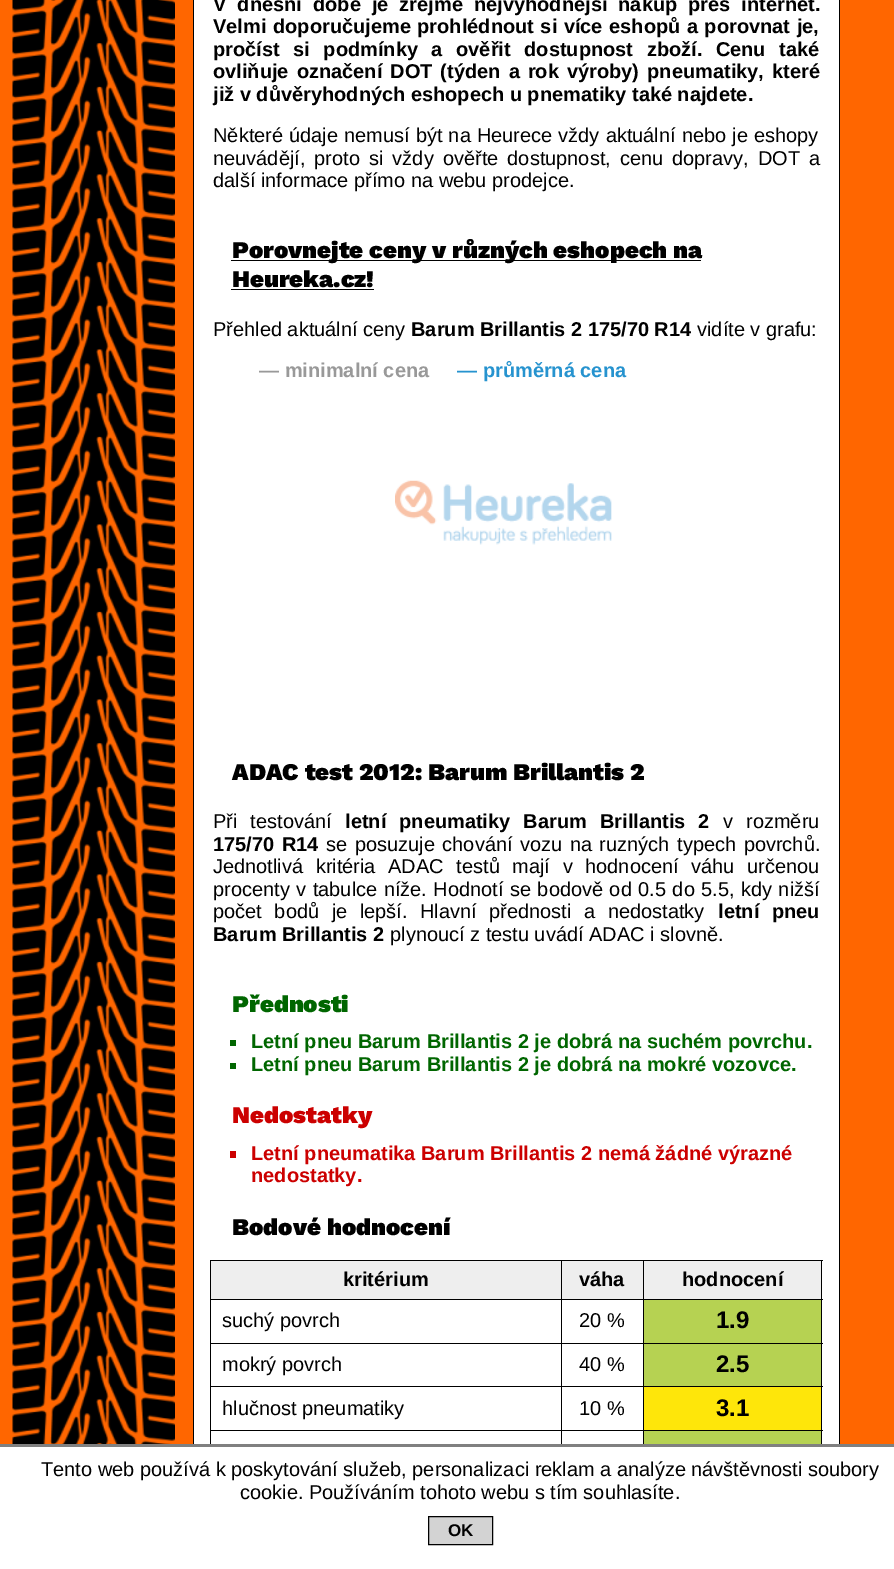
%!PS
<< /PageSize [894 1569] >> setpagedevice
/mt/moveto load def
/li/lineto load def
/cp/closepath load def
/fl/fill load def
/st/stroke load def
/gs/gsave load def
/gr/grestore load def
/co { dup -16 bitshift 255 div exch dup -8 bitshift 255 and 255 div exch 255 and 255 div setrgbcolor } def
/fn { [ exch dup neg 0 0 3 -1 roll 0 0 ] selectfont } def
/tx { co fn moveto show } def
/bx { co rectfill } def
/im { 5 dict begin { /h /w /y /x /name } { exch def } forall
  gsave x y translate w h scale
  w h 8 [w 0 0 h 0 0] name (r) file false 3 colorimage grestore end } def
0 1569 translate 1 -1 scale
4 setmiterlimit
0 0 894 1569 16#FF6600 bx
(media/1.raw) 12 0 163 1444 im
194 0 645 1444 16#FFFFFF bx
839 0 1 1444 16#000000 bx
193 0 1 1444 16#000000 bx
231 260 470 1 16#000000 bx
231 289 143 1 16#000000 bx
(media/2.raw) 395 480 217 65 im
230 1040 6 6 16#006600 bx
230 1063 6 6 16#006600 bx
230 1151 6 7 16#CC0000 bx
211 1261 350 38 16#EEEEEE bx
643 1260 180 1 16#000000 bx
643 1299 180 1 16#000000 bx
643 1343 180 1 16#000000 bx
643 1386 180 1 16#000000 bx
643 1430 180 1 16#000000 bx
643 1430 1 14 16#000000 bx
561 1430 83 1 16#000000 bx
643 1386 1 45 16#000000 bx
561 1386 83 1 16#000000 bx
643 1343 1 45 16#000000 bx
561 1343 83 1 16#000000 bx
643 1299 1 45 16#000000 bx
561 1299 83 1 16#000000 bx
643 1260 1 40 16#000000 bx
561 1260 83 1 16#000000 bx
561 1430 1 14 16#000000 bx
210 1430 353 1 16#000000 bx
561 1386 1 45 16#000000 bx
210 1386 353 1 16#000000 bx
561 1343 1 45 16#000000 bx
210 1343 353 1 16#000000 bx
561 1299 1 45 16#000000 bx
210 1299 353 1 16#000000 bx
561 1260 1 40 16#000000 bx
210 1260 353 1 16#000000 bx
210 1430 1 14 16#000000 bx
210 1386 1 45 16#000000 bx
210 1343 1 45 16#000000 bx
210 1299 1 45 16#000000 bx
210 1260 1 40 16#000000 bx
562 1261 81 38 16#EEEEEE bx
644 1261 177 38 16#EEEEEE bx
821 1430 1 14 16#000000 bx
821 1386 1 45 16#000000 bx
821 1343 1 45 16#000000 bx
821 1299 1 45 16#000000 bx
821 1260 1 40 16#000000 bx
644 1300 177 43 16#B6D252 bx
644 1344 177 42 16#B6D252 bx
644 1387 177 43 16#FEE60A bx
644 1431 177 13 16#B6D252 bx
0 1447 894 122 16#FFFFFF bx
0 1444 894 3 16#808080 bx
16#D3D3D3 co
428.5 1516.5 mt 492.5 1516.5 li 492.5 1544.5 li 428.5 1544.5 li cp gs fl gr
16#000000 co
st
/LiberationSans-Bold 20 fn
213 11 mt 5.5 0 32 (V dnešní době je zřejmě nejvýhodnější nákup přes internet.) widthshow
213 33 mt 1 0 32 (Velmi doporučujeme prohlédnout si více eshopů a porovnat je,) widthshow
213 56 mt 8 0 32 (pročíst si podmínky a ověřit dostupnost zboží. Cenu také) widthshow
213 78 mt 2.5 0 32 (ovliňuje označení DOT \(týden a rok výroby\) pneumatiky, které) widthshow
(již v důvěryhodných eshopech u pnematiky také najdete.) 213 101 /LiberationSans-Bold 20 16#000000 tx
/LiberationSans-Regular 20 fn
213 142 mt .5 0 32 (Některé údaje nemusí být na Heurece vždy aktuální nebo je eshopy) widthshow
213 165 mt 3.5 0 32 (neuvádějí, proto si vždy ověřte dostupnost, cenu dopravy, DOT a) widthshow
(další informace přímo na webu prodejce.) 213 187 /LiberationSans-Regular 20 16#000000 tx
(Porovnejte ceny v různých eshopech na) 232 258 /WorkSans-Black 24 16#000000 tx
(Heureka.cz!) 232 287 /WorkSans-Black 24 16#000000 tx
(Přehled aktuální ceny) 213 336 /LiberationSans-Regular 20 16#000000 tx
(Barum Brillantis 2 175/70 R14) 411 336 /LiberationSans-Bold 20 16#000000 tx
(vidíte v grafu:) 697 336 /LiberationSans-Regular 20 16#000000 tx
(— minimalní cena) 259 377 /LiberationSans-Bold 20 16#999999 tx
(— průměrná cena) 457 377 /LiberationSans-Bold 20 16#2693CF tx
(ADAC test 2012: Barum Brillantis 2) 232 780 /WorkSans-Black 24 16#000000 tx
/LiberationSans-Regular 20 fn
213 828 mt 7.5 0 32 (Při testování) widthshow
/LiberationSans-Bold 20 fn
345 828 mt 7.5 0 32 (letní pneumatiky Barum Brillantis 2) widthshow
(v) 723 828 /LiberationSans-Regular 20 16#000000 tx
(rozměru) 746 828 /LiberationSans-Regular 20 16#000000 tx
/LiberationSans-Bold 20 fn
213 851 mt 2 0 32 (175/70 R14) widthshow
/LiberationSans-Regular 20 fn
326 851 mt 2 0 32 (se posuzuje chování vozu na ruzných typech povrchů.) widthshow
213 873 mt 7 0 32 (Jednotlivá kritéria ADAC testů mají v hodnocení váhu určenou) widthshow
213 896 mt .9 0 32 (procenty v tabulce níže. Hodnotí se bodově od 0.5 do 5.5, kdy nižší) widthshow
213 918 mt 7 0 32 (počet bodů je lepší. Hlavní přednosti a nedostatky) widthshow
/LiberationSans-Bold 20 fn
718 918 mt 7 0 32 (letní pneu) widthshow
(Barum Brillantis 2) 213 941 /LiberationSans-Bold 20 16#000000 tx
(plynoucí z testu uvádí ADAC i slovně.) 390 941 /LiberationSans-Regular 20 16#000000 tx
(Přednosti) 232 1012 /WorkSans-Black 24 16#006600 tx
(Letní pneu Barum Brillantis 2 je dobrá na suchém povrchu.) 251 1048 /LiberationSans-Bold 20 16#006600 tx
(Letní pneu Barum Brillantis 2 je dobrá na mokré vozovce.) 251 1071 /LiberationSans-Bold 20 16#006600 tx
(Nedostatky) 232 1123 /WorkSans-Black 24 16#CC0000 tx
(Letní pneumatika Barum Brillantis 2 nemá žádné výrazné) 251 1160 /LiberationSans-Bold 20 16#CC0000 tx
(nedostatky.) 251 1182 /LiberationSans-Bold 20 16#CC0000 tx
(Bodové hodnocení) 232 1235 /WorkSans-Black 24 16#000000 tx
(kritérium) 343 1286 /LiberationSans-Bold 20 16#000000 tx
(váha) 579 1286 /LiberationSans-Bold 20 16#000000 tx
(hodnocení) 682 1286 /LiberationSans-Bold 20 16#000000 tx
(suchý povrch) 222 1327 /LiberationSans-Regular 20 16#000000 tx
(20 %) 579 1327 /LiberationSans-Regular 20 16#000000 tx
(1.9) 716 1328 /LiberationSans-Bold 24 16#000000 tx
(mokrý povrch) 222 1371 /LiberationSans-Regular 20 16#000000 tx
(40 %) 579 1371 /LiberationSans-Regular 20 16#000000 tx
(2.5) 716 1372 /LiberationSans-Bold 24 16#000000 tx
(hlučnost pneumatiky) 222 1415 /LiberationSans-Regular 20 16#000000 tx
(10 %) 579 1415 /LiberationSans-Regular 20 16#000000 tx
(3.1) 716 1416 /LiberationSans-Bold 24 16#000000 tx
(Tento web používá k poskytování služeb, personalizaci reklam a analýze návštěvnosti soubory) 41 1476 /LiberationSans-Regular 20 16#000000 tx
(cookie. Používáním tohoto webu s tím souhlasíte.) 240 1499 /LiberationSans-Regular 20 16#000000 tx
(OK) 448 1536 /LiberationSans-Bold 17 16#000000 tx
showpage
